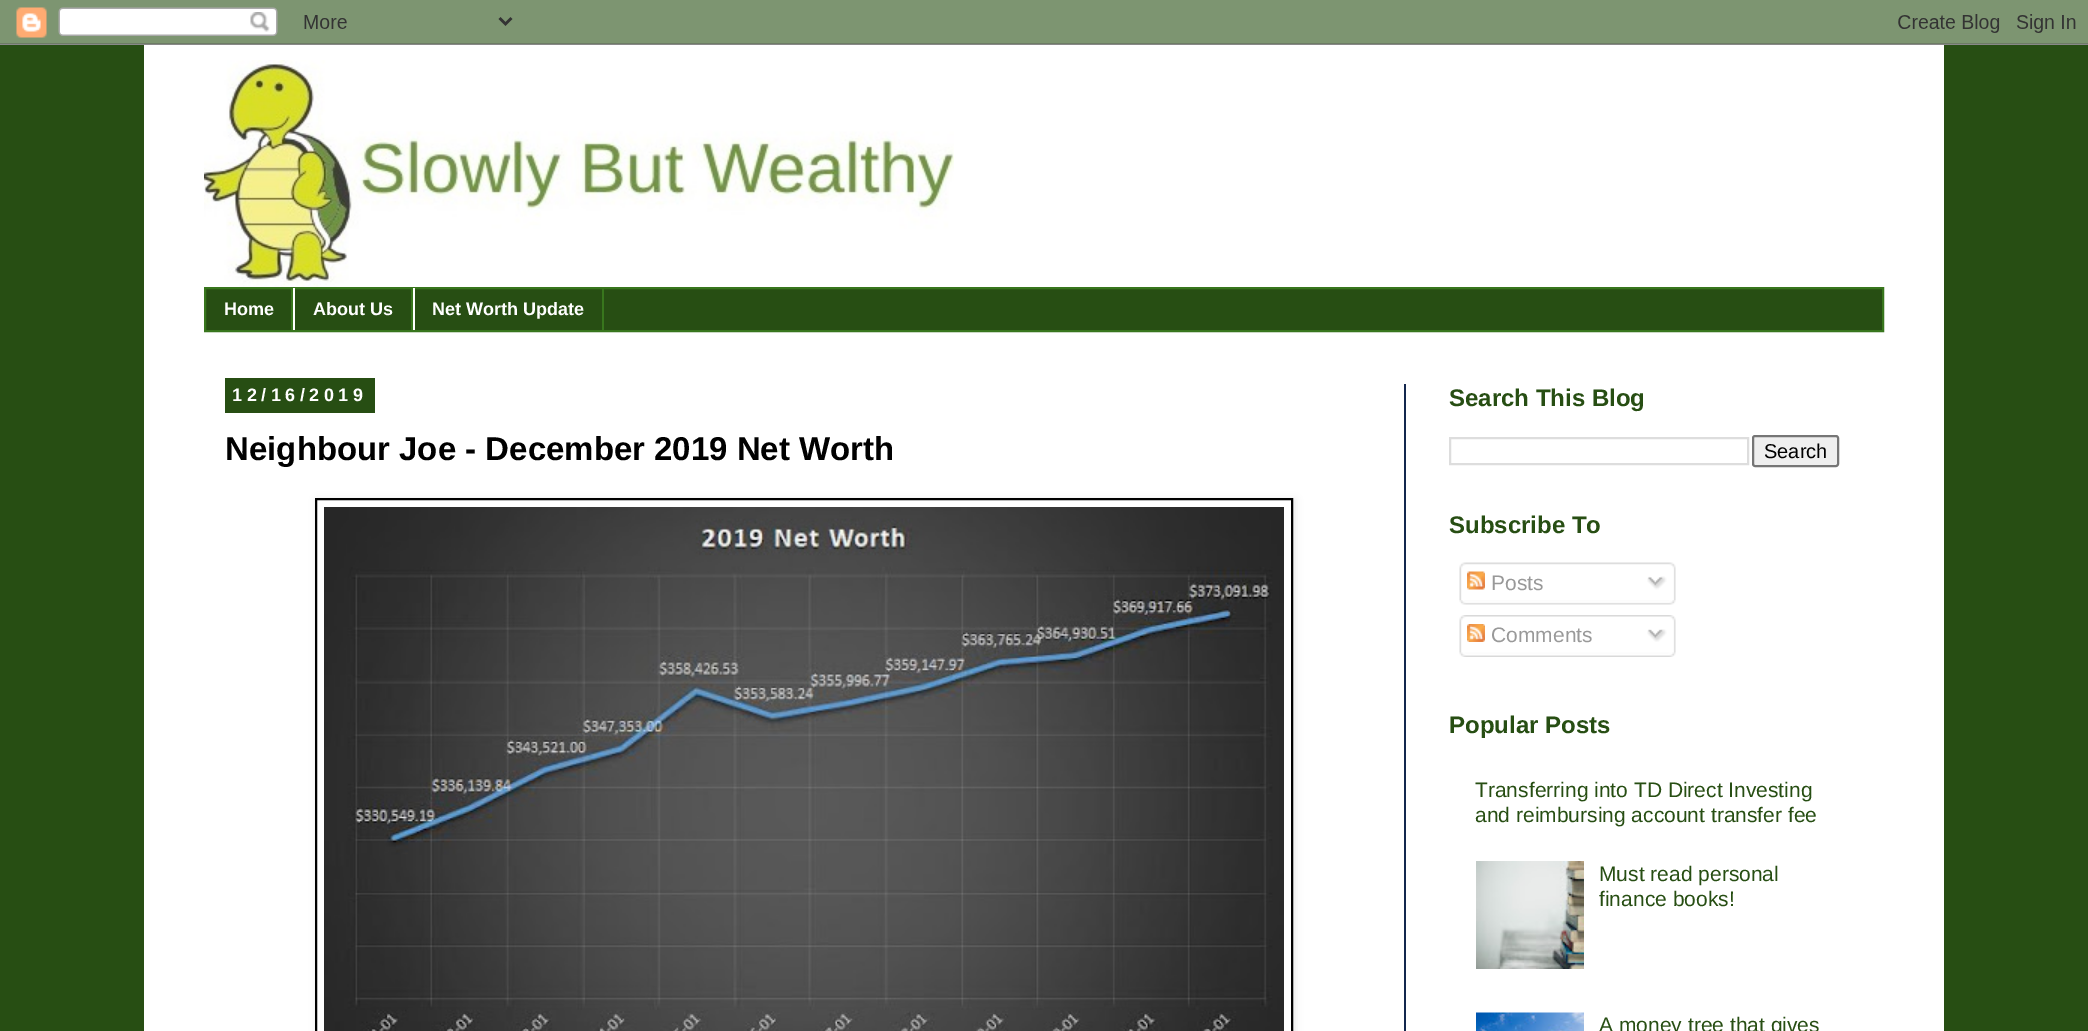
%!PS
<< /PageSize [2088 1031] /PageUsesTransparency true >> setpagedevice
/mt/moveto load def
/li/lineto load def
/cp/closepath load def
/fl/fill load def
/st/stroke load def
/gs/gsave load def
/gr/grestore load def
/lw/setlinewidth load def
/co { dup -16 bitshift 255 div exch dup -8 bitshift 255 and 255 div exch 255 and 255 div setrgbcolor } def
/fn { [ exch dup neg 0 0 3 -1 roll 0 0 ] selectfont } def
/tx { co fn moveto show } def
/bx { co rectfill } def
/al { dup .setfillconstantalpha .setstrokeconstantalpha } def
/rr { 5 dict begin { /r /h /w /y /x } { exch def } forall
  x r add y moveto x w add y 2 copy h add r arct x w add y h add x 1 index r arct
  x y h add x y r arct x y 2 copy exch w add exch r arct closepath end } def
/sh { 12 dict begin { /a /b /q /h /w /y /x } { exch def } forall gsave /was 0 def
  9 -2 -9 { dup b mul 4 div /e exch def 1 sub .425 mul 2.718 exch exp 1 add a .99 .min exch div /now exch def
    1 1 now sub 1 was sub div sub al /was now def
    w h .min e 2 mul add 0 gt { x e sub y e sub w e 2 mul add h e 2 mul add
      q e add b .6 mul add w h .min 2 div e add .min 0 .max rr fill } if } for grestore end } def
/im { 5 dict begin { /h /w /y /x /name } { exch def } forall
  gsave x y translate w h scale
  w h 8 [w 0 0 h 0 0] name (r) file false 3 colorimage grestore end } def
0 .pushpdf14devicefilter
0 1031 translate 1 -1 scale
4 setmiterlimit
0 0 2088 1031 16#274E13 bx
(media/1.raw) 0 0 2088 45 im
144 45 1800 986 16#FFFFFF bx
(media/2.raw) 204 60 750 227 im
16#274E13 co
205 288 mt 1883 288 li 1883 331 li 205 331 li cp gs fl gr
16#38761D co
2 lw
st
291 288 2 42 16#38761D bx
411 288 2 42 16#38761D bx
293 288 2 42 16#FFFFFF bx
602 288 2 42 16#38761D bx
413 288 2 42 16#FFFFFF bx
1404 384 2 647 16#13274E bx
225 378 150 35 16#274E13 bx
gs
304 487 mt 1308 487 li 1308 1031 li 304 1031 li cp 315 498 mt 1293 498 li 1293 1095 li 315 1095 li cp eoclip newpath
16#000000 co
317 500 978 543 0 4 .1 sh
gr
16#000000 co
316 499 976 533 rectstroke
(media/3.raw) 324 507 960 524 im
16#DDDDDD co
1450 438 298 26 rectstroke
16#EFEFEF co
1753 436 85 30 2 rr gs fl gr
16#767676 co
st
(media/4.raw) 1459 562 217 38 im
(media/5.raw) 1467 571 18 19 im
(media/6.raw) 1647 576 20 14 im
(media/7.raw) 1459 600 217 5 im
(media/8.raw) 1459 615 217 38 im
(media/9.raw) 1467 624 18 18 im
(media/10.raw) 1647 629 20 13 im
(media/11.raw) 1459 652 217 5 im
(media/12.raw) 1476 861 108 108 im
(media/13.raw) 1476 1012 108 19 im
(Home) 224 315 /LiberationSans-Bold 18 16#FFFFFF tx
(About Us) 313 315 /LiberationSans-Bold 18 16#FFFFFF tx
(Net Worth Update) 432 315 /LiberationSans-Bold 18 16#FFFFFF tx
232 401 mt 4.5 0 (12/16/2019) ashow
(Neighbour Joe - December 2019 Net Worth) 225 460 /LiberationSans-Bold 33 16#000000 tx
(Search This Blog) 1449 406 /LiberationSans-Bold 24 16#274E13 tx
(Search) 1764 458 /LiberationSans-Regular 20 16#000000 tx
(Subscribe To) 1449 533 /LiberationSans-Bold 24 16#274E13 tx
(Posts) 1491 590 /LiberationSans-Regular 21 16#999999 tx
(Comments) 1491 642 /LiberationSans-Regular 21 16#999999 tx
(Popular Posts) 1449 733 /LiberationSans-Bold 24 16#274E13 tx
(Transferring into TD Direct Investing) 1475 797 /LiberationSans-Regular 21 16#274E13 tx
(and reimbursing account transfer fee) 1475 822 /LiberationSans-Regular 21 16#274E13 tx
(Must read personal) 1599 881 /LiberationSans-Regular 21 16#274E13 tx
(finance books!) 1599 906 /LiberationSans-Regular 21 16#274E13 tx
(A money tree that gives) 1599 1032 /LiberationSans-Regular 21 16#274E13 tx
.poppdf14devicefilter showpage
